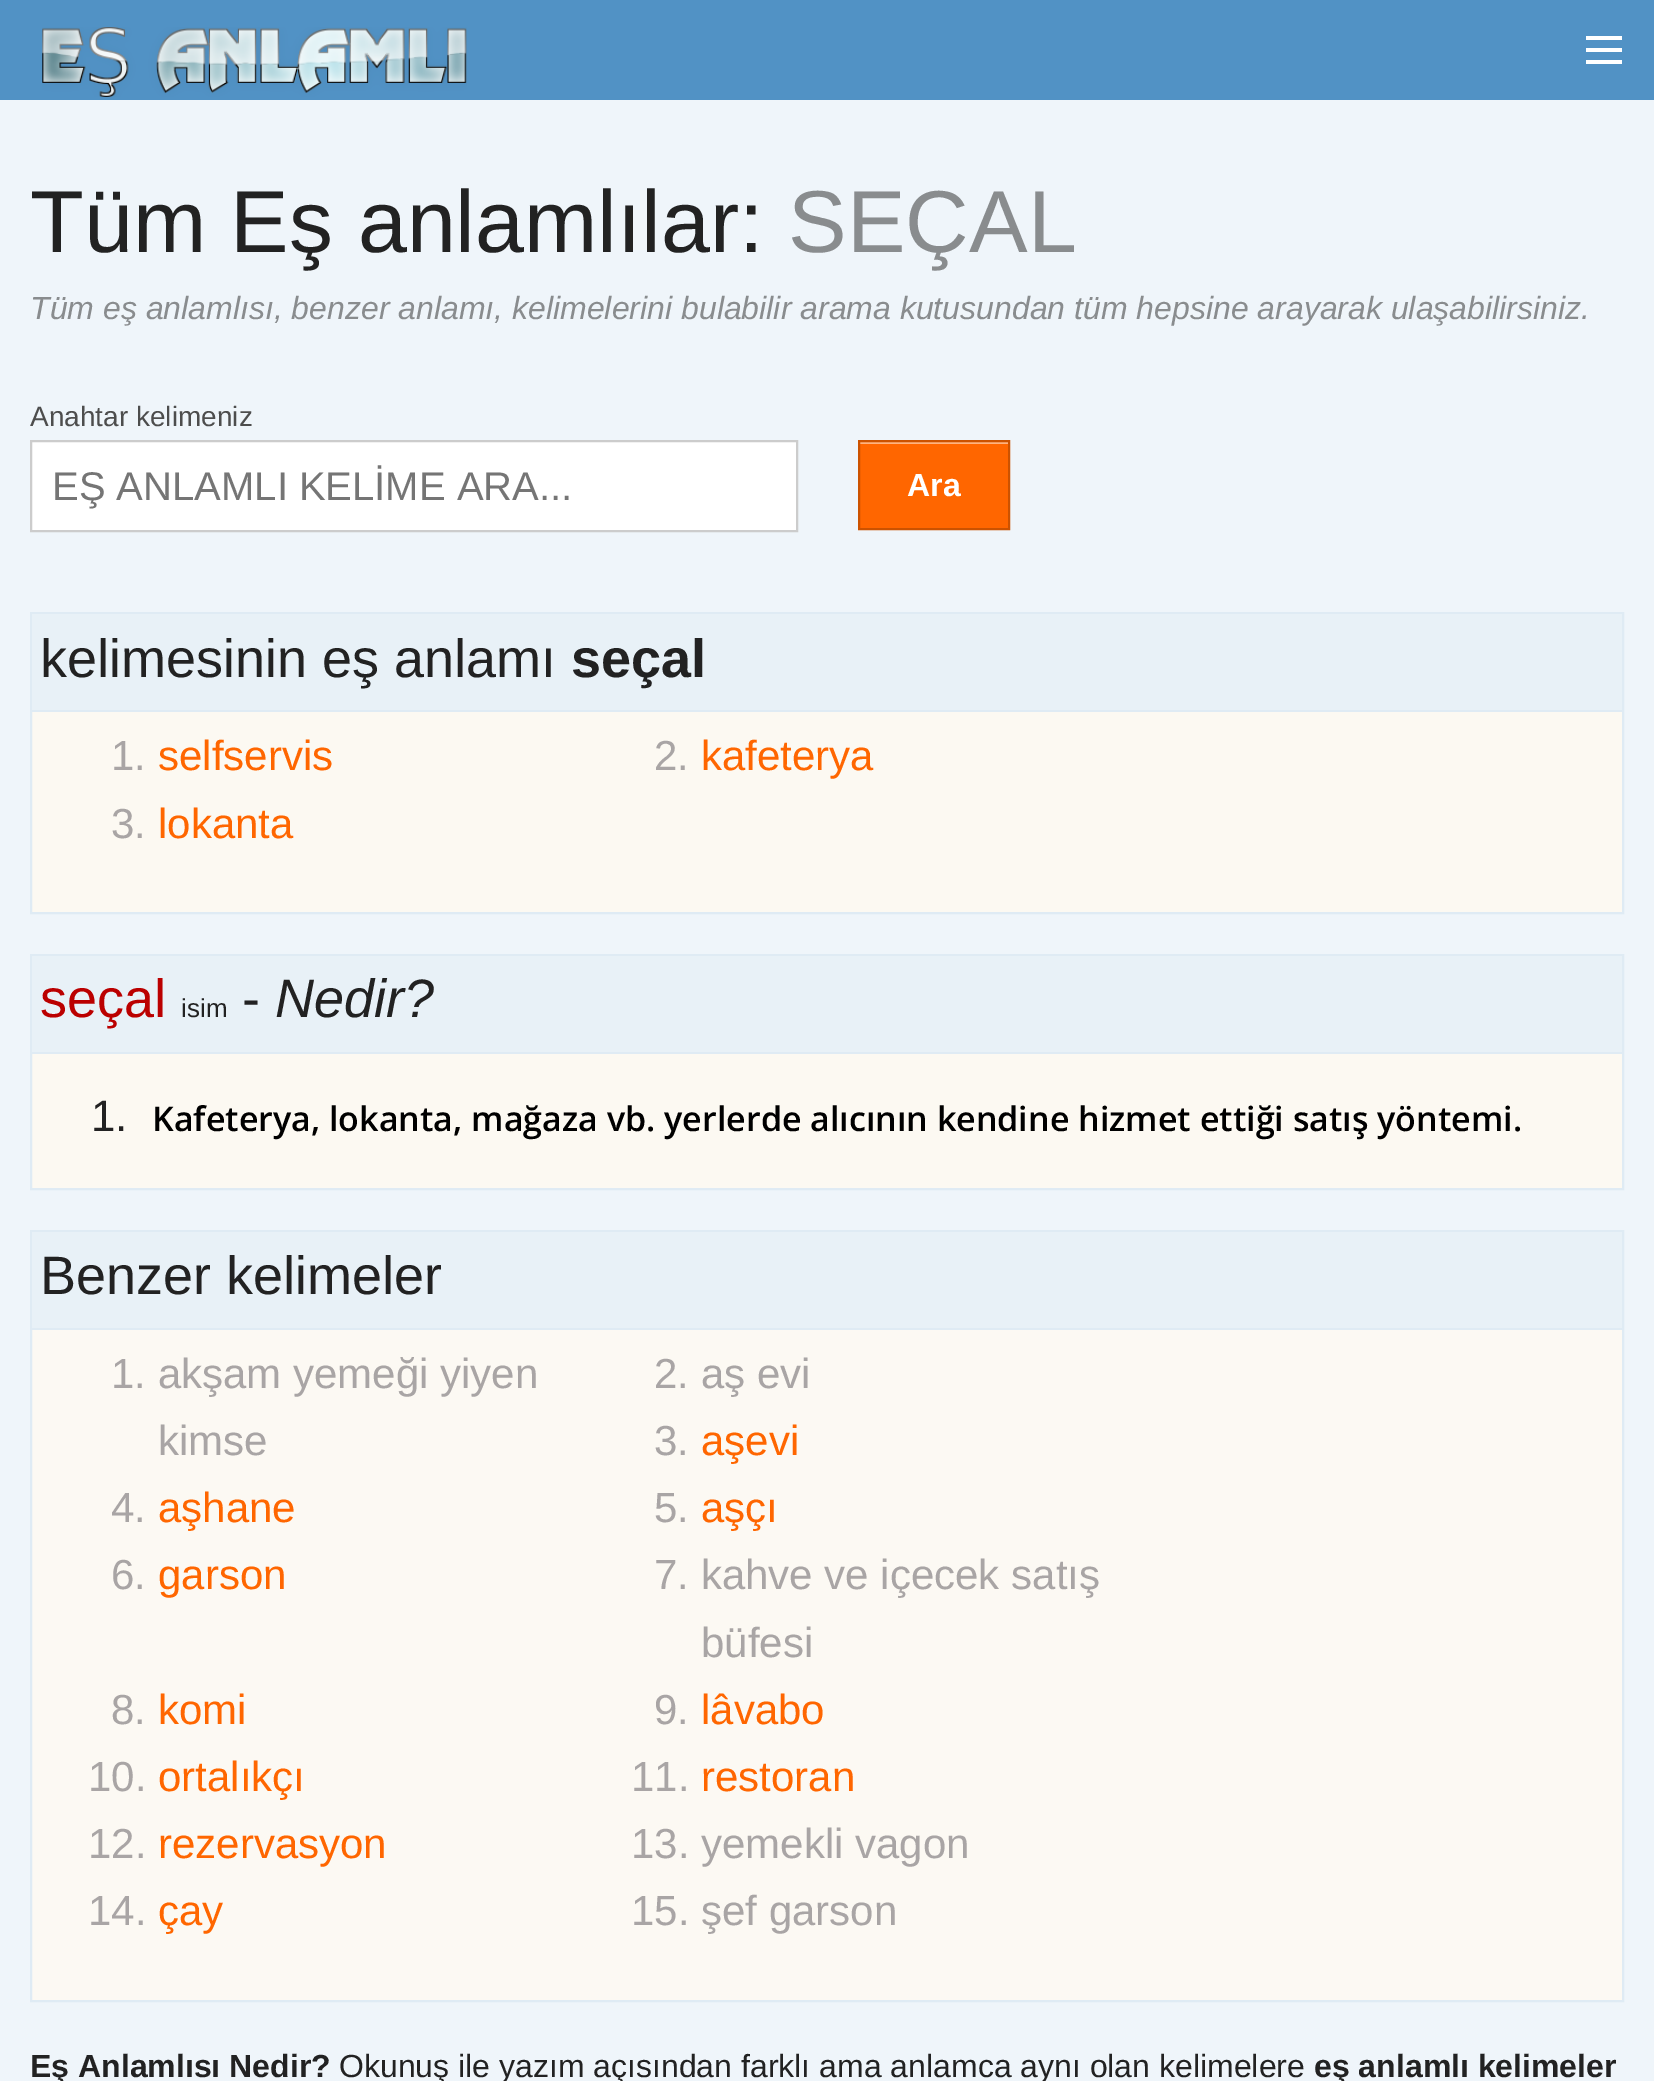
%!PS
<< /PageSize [1654 2081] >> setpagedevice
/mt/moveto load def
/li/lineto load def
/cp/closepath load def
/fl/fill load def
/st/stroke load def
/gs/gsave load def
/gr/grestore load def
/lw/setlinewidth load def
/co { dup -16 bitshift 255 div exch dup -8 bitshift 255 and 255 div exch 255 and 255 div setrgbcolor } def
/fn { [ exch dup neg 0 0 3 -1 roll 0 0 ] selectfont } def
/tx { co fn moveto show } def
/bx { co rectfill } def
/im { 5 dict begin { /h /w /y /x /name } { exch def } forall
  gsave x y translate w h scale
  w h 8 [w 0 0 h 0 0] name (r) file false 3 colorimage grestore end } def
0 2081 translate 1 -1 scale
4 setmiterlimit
0 0 1654 2081 16#EFF5FA bx
0 0 1654 100 16#5192C5 bx
(media/1.raw) 42 27 425 70 im
1586 60 36 4 16#FFFFFF bx
1586 48 36 4 16#FFFFFF bx
1586 36 36 4 16#FFFFFF bx
31 441 mt 797 441 li 797 531 li 31 531 li cp gs fl gr
16#CCCCCC co
2 lw
st
860 444 148 84 16#FF6600 bx
860 442 148 2 16#FFB380 bx
16#CC5200 co
859 441 150 88 rectstroke
32 712 1590 200 16#FCF9F2 bx
16#DFEBF4 co
31 613 1592 300 rectstroke
32 614 1590 96 16#E8F1F7 bx
32 710 1590 2 16#DFEBF4 bx
32 1054 1590 134 16#FCF9F2 bx
16#DFEBF4 co
31 955 1592 234 rectstroke
32 956 1590 96 16#E8F1F7 bx
32 1052 1590 2 16#DFEBF4 bx
32 1330 1590 670 16#FCF9F3 bx
16#DFEBF4 co
31 1231 1592 770 rectstroke
32 1232 1590 96 16#E8F1F7 bx
32 1328 1590 2 16#DFEBF4 bx
(Tüm Eş anlamlılar:) 30 252 /LiberationSans-Regular 88 16#222222 tx
(SEÇAL) 788 252 /LiberationSans-Regular 88 16#898C8E tx
(Tüm eş anlamlısı, benzer anlamı, kelimelerini bulabilir arama kutusundan tüm hepsine arayarak ulaşabilirsiniz.) 30 319 /LiberationSans-Italic 32 16#898C8E tx
(Anahtar kelimeniz) 30 426 /LiberationSans-Regular 28 16#4D4D4D tx
(EŞ ANLAMLI KELİME ARA...) 52 500 /LiberationSans-Regular 40 16#757575 tx
(Ara) 907 496 /LiberationSans-Bold 32 16#FFFFFF tx
(kelimesinin eş anlamı) 40 677 /LiberationSans-Regular 54 16#222222 tx
(seçal) 571 677 /LiberationSans-Bold 54 16#222222 tx
(1.) 111 770 /LiberationSans-Regular 42 16#A9A5A5 tx
(selfservis) 158 770 /LiberationSans-Regular 42 16#FF6600 tx
(2.) 654 770 /LiberationSans-Regular 42 16#A9A5A5 tx
(kafeterya) 701 770 /LiberationSans-Regular 42 16#FF6600 tx
(3.) 111 838 /LiberationSans-Regular 42 16#A9A5A5 tx
(lokanta) 158 838 /LiberationSans-Regular 42 16#FF6600 tx
(seçal) 40 1017 /LiberationSans-Regular 54 16#BB0000 tx
(isim) 181 1017 /LiberationSans-Regular 26 16#222222 tx
(-) 242 1017 /LiberationSans-Regular 54 16#222222 tx
(Nedir?) 275 1017 /LiberationSans-Italic 54 16#222222 tx
(1.) 91 1131 /LiberationSans-Regular 44 16#222222 tx
(Kafeterya, lokanta, mağaza vb. yerlerde alıcının kendine hizmet ettiği satış yöntemi.) 152 1131 /OpenSans-SemiBold 34 16#000000 tx
(Benzer kelimeler) 40 1294 /LiberationSans-Regular 54 16#222222 tx
(1. akşam yemeği yiyen) 111 1388 /LiberationSans-Regular 42 16#A9A5A5 tx
(kimse) 158 1455 /LiberationSans-Regular 42 16#A9A5A5 tx
(2. aş evi) 654 1388 /LiberationSans-Regular 42 16#A9A5A5 tx
(3.) 654 1455 /LiberationSans-Regular 42 16#A9A5A5 tx
(aşevi) 701 1455 /LiberationSans-Regular 42 16#FF6600 tx
(4.) 111 1522 /LiberationSans-Regular 42 16#A9A5A5 tx
(aşhane) 158 1522 /LiberationSans-Regular 42 16#FF6600 tx
(5.) 654 1522 /LiberationSans-Regular 42 16#A9A5A5 tx
(aşçı) 701 1522 /LiberationSans-Regular 42 16#FF6600 tx
(6.) 111 1589 /LiberationSans-Regular 42 16#A9A5A5 tx
(garson) 158 1589 /LiberationSans-Regular 42 16#FF6600 tx
(7. kahve ve içecek satış) 654 1589 /LiberationSans-Regular 42 16#A9A5A5 tx
(büfesi) 701 1657 /LiberationSans-Regular 42 16#A9A5A5 tx
(8.) 111 1724 /LiberationSans-Regular 42 16#A9A5A5 tx
(komi) 158 1724 /LiberationSans-Regular 42 16#FF6600 tx
(9.) 654 1724 /LiberationSans-Regular 42 16#A9A5A5 tx
(lâvabo) 701 1724 /LiberationSans-Regular 42 16#FF6600 tx
(10.) 88 1791 /LiberationSans-Regular 42 16#A9A5A5 tx
(ortalıkçı) 158 1791 /LiberationSans-Regular 42 16#FF6600 tx
(11.) 631 1791 /LiberationSans-Regular 42 16#A9A5A5 tx
(restoran) 701 1791 /LiberationSans-Regular 42 16#FF6600 tx
(12.) 88 1858 /LiberationSans-Regular 42 16#A9A5A5 tx
(rezervasyon) 158 1858 /LiberationSans-Regular 42 16#FF6600 tx
(13. yemekli vagon) 631 1858 /LiberationSans-Regular 42 16#A9A5A5 tx
(14.) 88 1925 /LiberationSans-Regular 42 16#A9A5A5 tx
(çay) 158 1925 /LiberationSans-Regular 42 16#FF6600 tx
(15. şef garson) 631 1925 /LiberationSans-Regular 42 16#A9A5A5 tx
(Eş Anlamlısı Nedir?) 30 2077 /LiberationSans-Bold 32 16#222222 tx
(Okunuş ile yazım açısından farklı ama anlamca aynı olan kelimelere) 339 2077 /LiberationSans-Regular 32 16#222222 tx
(eş anlamlı kelimeler) 1314 2077 /LiberationSans-Bold 32 16#222222 tx
showpage
